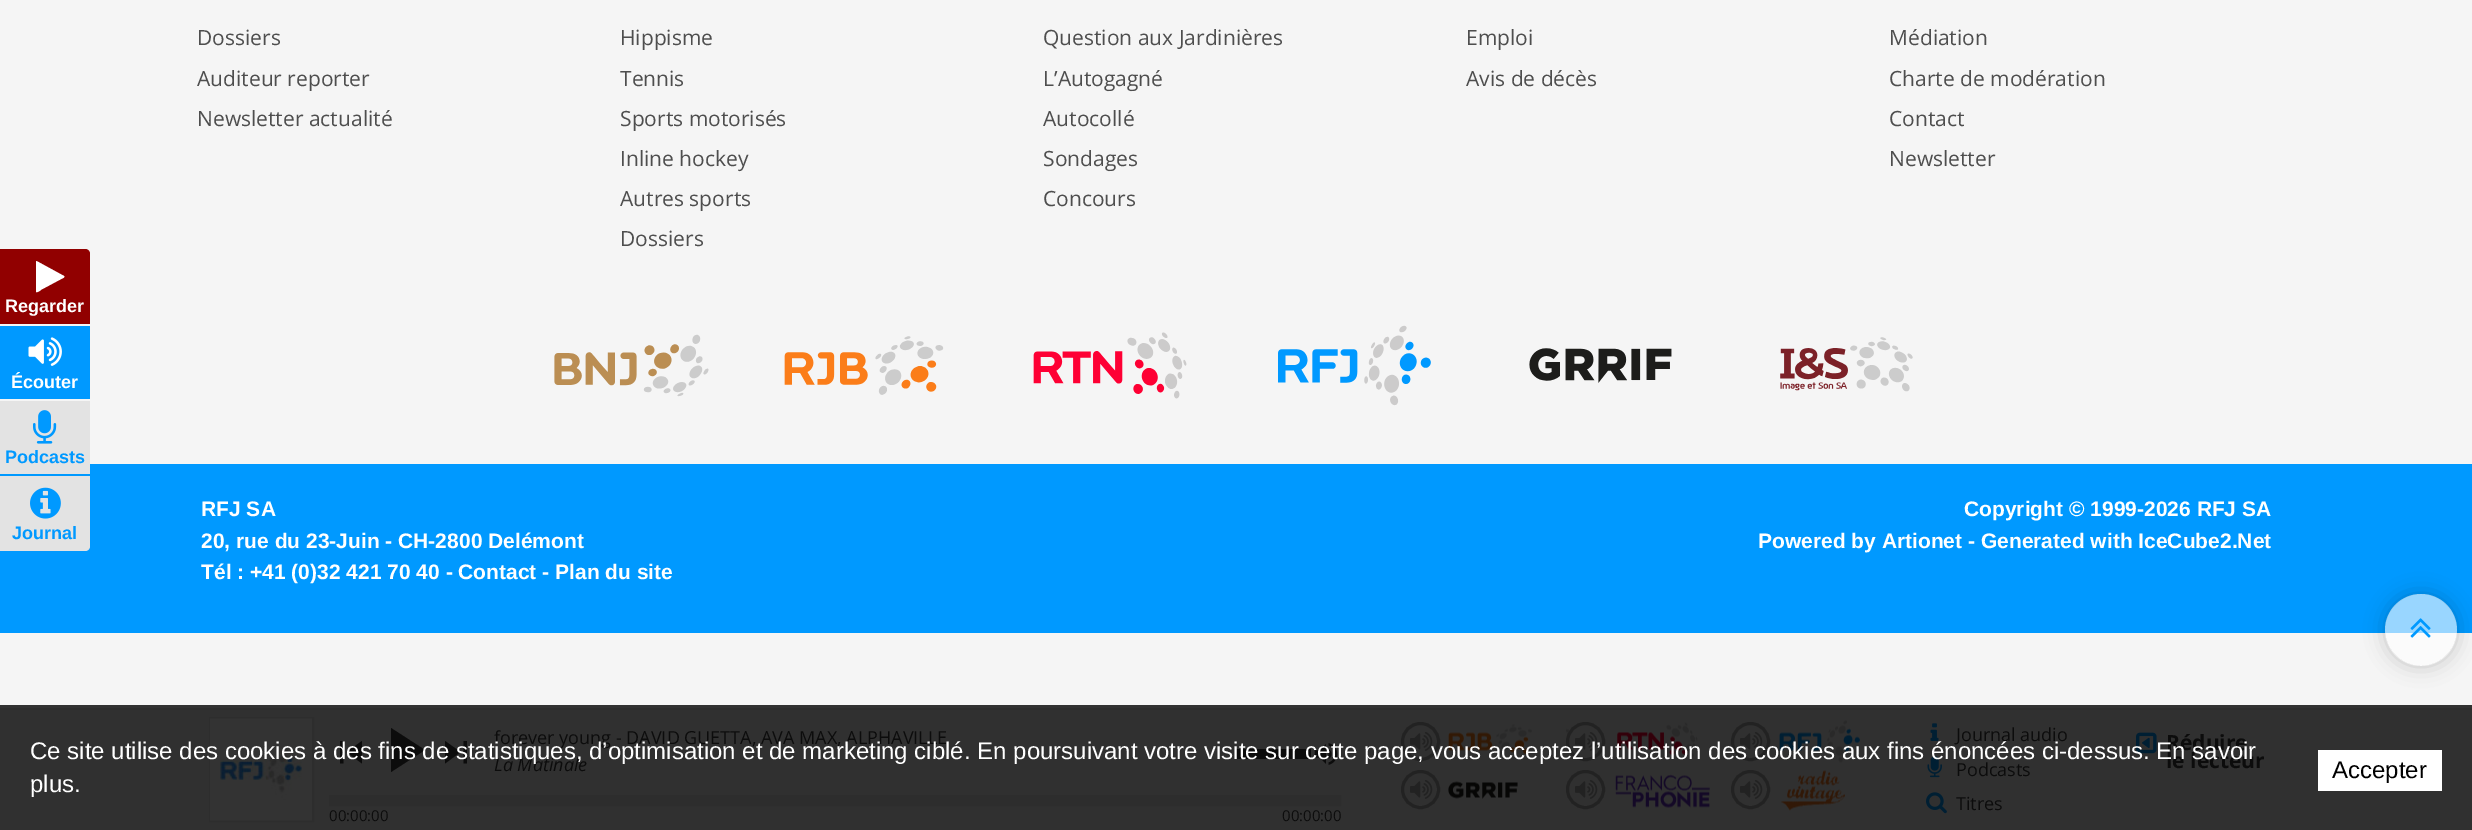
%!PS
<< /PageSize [2472 830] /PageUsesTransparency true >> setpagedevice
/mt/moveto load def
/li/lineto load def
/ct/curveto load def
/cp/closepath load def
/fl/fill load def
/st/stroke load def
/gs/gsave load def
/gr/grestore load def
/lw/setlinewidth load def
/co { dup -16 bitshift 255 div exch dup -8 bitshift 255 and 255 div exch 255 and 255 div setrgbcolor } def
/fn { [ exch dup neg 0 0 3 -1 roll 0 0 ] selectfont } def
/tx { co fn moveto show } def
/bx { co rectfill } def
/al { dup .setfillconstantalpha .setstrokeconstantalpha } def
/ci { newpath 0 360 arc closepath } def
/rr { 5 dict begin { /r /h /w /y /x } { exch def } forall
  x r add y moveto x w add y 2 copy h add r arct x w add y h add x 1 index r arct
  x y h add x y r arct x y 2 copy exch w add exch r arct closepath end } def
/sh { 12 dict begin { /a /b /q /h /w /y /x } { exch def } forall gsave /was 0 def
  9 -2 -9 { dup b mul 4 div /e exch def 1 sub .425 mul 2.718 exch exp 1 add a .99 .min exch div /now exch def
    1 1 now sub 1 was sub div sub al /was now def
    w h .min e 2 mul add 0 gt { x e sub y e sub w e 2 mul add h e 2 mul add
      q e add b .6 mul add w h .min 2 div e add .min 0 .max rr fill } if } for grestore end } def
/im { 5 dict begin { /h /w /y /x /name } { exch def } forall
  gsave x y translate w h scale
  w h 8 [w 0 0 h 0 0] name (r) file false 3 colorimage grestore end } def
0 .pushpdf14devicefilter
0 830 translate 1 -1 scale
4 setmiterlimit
0 0 2472 830 16#F5F5F5 bx
16#910000 co
0 249 mt 85 249 li 88 249 90 251 90 254 ct 90 324 li 0 324 li cp fl
16#FFFFFF co
64 277.5 mt 41.5 289.5 li 41 290 37 293 36 292 ct 36 261.5 li 36.5 261 li 64 276 li 64.5 276.5 li cp fl
0 326 90 73 16#0099FF bx
(media/1.raw) 28 337 34 29 im
0 464 2472 169 16#0099FF bx
0 401 90 73 16#E3E3E3 bx
(media/2.raw) 33 410 24 34 im
0 476 mt 90 476 li 90 546 li 90 549 88 551 85 551 ct 0 551 li cp fl
(media/3.raw) 30 487 31 32 im
0 705 2472 3 16#313131 bx
(media/4.raw) 554 334 155 63 im
(media/5.raw) 784 336 160 59 im
(media/6.raw) 1033 332 154 67 im
(media/7.raw) 1278 325 153 81 im
(media/8.raw) 1529 348 143 35 im
(media/9.raw) 1780 337 133 55 im
gs
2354 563 mt 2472 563 li 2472 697 li 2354 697 li cp 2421 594 mt 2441 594 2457 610 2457 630 ct 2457 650 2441 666 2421 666 ct 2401 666 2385 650 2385 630 ct 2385 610 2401 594 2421 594 ct cp eoclip newpath
16#000000 co
2385 594 72 72 36 10 .2 sh
gr
0.6 al
16#FFFFFF co
2421 630 36 ci fl
1 al
(media/10.raw) 2410 618 21 20 im
0 710 2472 120 16#303030 bx
0 708 2472 2 16#2D2D2D bx
2 lw
210 718 103 103 rectstroke
(media/11.raw) 210 718 102 103 im
(media/12.raw) 1401 724 131 32 im
16#222222 co
3 lw
1420.5 741.5 18 ci st
(media/13.raw) 1410 732 23 19 im
(media/14.raw) 1566 722 132 36 im
1585.5 741.5 18 ci st
(media/13.raw) 1575 732 23 19 im
(media/15.raw) 1779 720 81 43 im
1750.5 741.5 18 ci st
(media/13.raw) 1740 732 23 19 im
(media/16.raw) 1448 781 70 18 im
1420.5 789.5 18 ci st
(media/13.raw) 1410 780 23 19 im
(media/17.raw) 1566 774 144 34 im
16#303030 co
1585.5 789.5 18 ci gs fl gr
16#222222 co
st
(media/13.raw) 1575 780 23 19 im
(media/18.raw) 1781 770 64 41 im
1750.5 789.5 18 ci st
(media/13.raw) 1740 780 23 19 im
(media/19.raw) 1930 723 9 18 im
(media/20.raw) 1927 756 15 22 im
(media/21.raw) 1926 792 21 22 im
16#0C0C0C co
346.5 752 mt 362 741 li 362 763.5 li cp 340 741 mt 343.5 741 li 343.5 763.5 li 340 763.5 li cp fl
391 728 mt 425 750 li 391 772 li cp fl
463.5 741 mt 467 741 li 467 763.5 li 463.5 763.5 li cp 445 763.5 mt 445 741 li 460.5 752 li cp fl
1236 749 75 10 16#0C0C0C bx
(media/22.raw) 1314 743 24 22 im
16#2D2D2D co
2 lw
330 796 1010 9 rectstroke
330 797 1010 7 16#2D2D2D bx
(media/23.raw) 2136 732 21 22 im
2318 750 124 41 16#FFFFFF bx
(Regarder) 5 312 /LiberationSans-Bold 18 16#FFFFFF tx
(Écouter) 11 388 /LiberationSans-Bold 18 16#FFFFFF tx
(Podcasts) 5 463 /LiberationSans-Bold 18 16#0099FF tx
(Journal) 12 539 /LiberationSans-Bold 18 16#0099FF tx
(Dossiers) 197 45 /OpenSans-Regular 21 16#4E4E4E tx
(Auditeur reporter) 197 86 /OpenSans-Regular 21 16#4E4E4E tx
(Newsletter actualité) 197 126 /OpenSans-Regular 21 16#4E4E4E tx
(Hippisme) 620 45 /OpenSans-Regular 21 16#4E4E4E tx
(Tennis) 620 86 /OpenSans-Regular 21 16#4E4E4E tx
(Sports motorisés) 620 126 /OpenSans-Regular 21 16#4E4E4E tx
(Inline hockey) 620 166 /OpenSans-Regular 21 16#4E4E4E tx
(Autres sports) 620 206 /OpenSans-Regular 21 16#4E4E4E tx
(Dossiers) 620 246 /OpenSans-Regular 21 16#4E4E4E tx
(Question aux Jardinières) 1043 45 /OpenSans-Regular 21 16#4E4E4E tx
(L’Autogagné) 1043 86 /OpenSans-Regular 21 16#4E4E4E tx
(Autocollé) 1043 126 /OpenSans-Regular 21 16#4E4E4E tx
(Sondages) 1043 166 /OpenSans-Regular 21 16#4E4E4E tx
(Concours) 1043 206 /OpenSans-Regular 21 16#4E4E4E tx
(Emploi) 1466 45 /OpenSans-Regular 21 16#4E4E4E tx
(Avis de décès) 1466 86 /OpenSans-Regular 21 16#4E4E4E tx
(Médiation) 1889 45 /OpenSans-Regular 21 16#4E4E4E tx
(Charte de modération) 1889 86 /OpenSans-Regular 21 16#4E4E4E tx
(Contact) 1889 126 /OpenSans-Regular 21 16#4E4E4E tx
(Newsletter) 1889 166 /OpenSans-Regular 21 16#4E4E4E tx
(RFJ SA) 201 516 /LiberationSans-Bold 21 16#FFFFFF tx
(20, rue du 23-Juin - CH-2800 Delémont) 201 548 /LiberationSans-Bold 21 16#FFFFFF tx
(Tél : +41 \(0\)32 421 70 40 - Contact - Plan du site) 201 579 /LiberationSans-Bold 21 16#FFFFFF tx
(Copyright © 1999-2026 RFJ SA) 1964 516 /LiberationSans-Bold 21 16#FFFFFF tx
(Powered by Artionet - Generated with IceCube2.Net) 1758 548 /LiberationSans-Bold 21 16#FFFFFF tx
(forever young - DAVID GUETTA, AVA MAX, ALPHAVILLE) 494 744 /OpenSans-Regular 18 16#0C0C0C tx
(La Matinale) 494 771 /OpenSans-Italic 18 16#0C0C0C tx
(Journal audio) 1956 741 /OpenSans-Regular 18 16#0C0C0C tx
(Podcasts) 1956 776 /OpenSans-Regular 18 16#0C0C0C tx
(Titres) 1956 810 /OpenSans-Regular 18 16#0C0C0C tx
(00:00:00) 329 821 /OpenSans-Regular 15 16#0C0C0C tx
(00:00:00) 1282 821 /OpenSans-Regular 15 16#0C0C0C tx
(Réduire) 2166 750 /OpenSans-Bold 21 16#0C0C0C tx
(le lecteur) 2166 768 /OpenSans-Bold 21 16#0C0C0C tx
(Ce site utilise des cookies à des fins de statistiques, d’optimisation et de marketing ciblé. En poursuivant votre visite sur cette page, vous acceptez l’utilisation des cookies aux fins énoncées ci-dessus. En savoir) 30 759 /LiberationSans-Regular 24 16#FFFFFF tx
(plus.) 30 792 /LiberationSans-Regular 24 16#FFFFFF tx
(Accepter) 2332 778 /LiberationSans-Regular 24 16#000000 tx
.poppdf14devicefilter showpage
